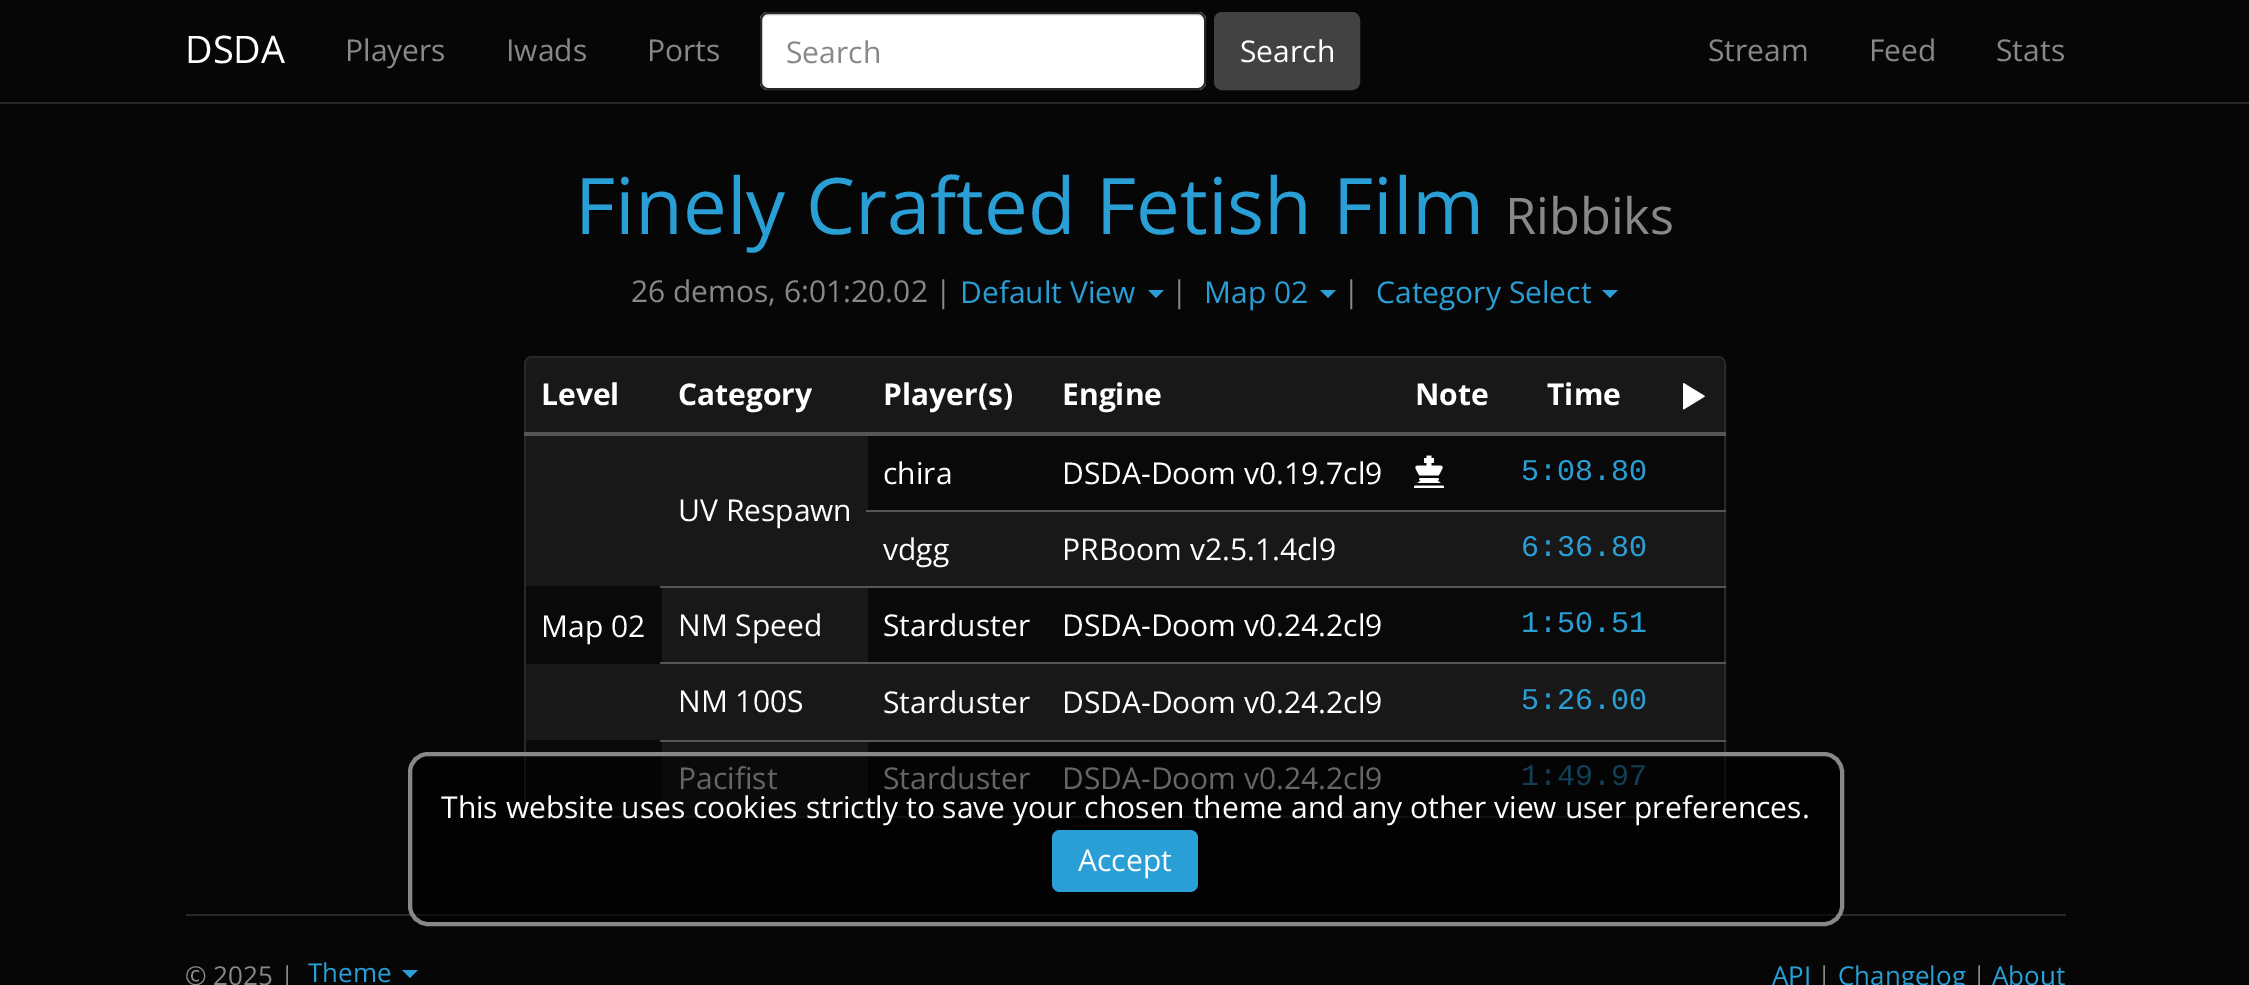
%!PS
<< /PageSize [2249 985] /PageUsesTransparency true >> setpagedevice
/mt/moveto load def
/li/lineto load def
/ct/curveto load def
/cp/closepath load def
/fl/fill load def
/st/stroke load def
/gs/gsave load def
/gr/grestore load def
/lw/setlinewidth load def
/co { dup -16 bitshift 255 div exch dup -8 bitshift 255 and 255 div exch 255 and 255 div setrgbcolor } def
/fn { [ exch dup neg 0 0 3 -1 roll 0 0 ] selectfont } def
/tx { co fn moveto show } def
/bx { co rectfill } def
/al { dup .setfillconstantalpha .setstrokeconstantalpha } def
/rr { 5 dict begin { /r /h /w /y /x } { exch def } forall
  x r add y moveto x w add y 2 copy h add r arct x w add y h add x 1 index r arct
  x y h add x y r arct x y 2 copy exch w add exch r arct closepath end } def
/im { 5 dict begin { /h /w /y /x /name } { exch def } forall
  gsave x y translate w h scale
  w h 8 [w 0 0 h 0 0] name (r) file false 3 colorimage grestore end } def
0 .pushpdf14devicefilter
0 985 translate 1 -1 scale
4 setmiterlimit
0 0 2249 985 16#060606 bx
0 102 2249 2 16#282828 bx
16#FFFFFF co
760 12 446 78 8 rr fl
16#ECECEC co
768 16 mt 1198 16 li 1201 16 1204 19 1204 22 ct 1204 20 li 1204 17 1201 14 1198 14 ct 768 14 li 765 14 762 17 762 20 ct 762 22 li 762 19 765 16 768 16 ct cp fl
16#282828 co
2 lw
761 13 444 76 7 rr st
16#424242 co
1215 13 144 76 7 rr gs fl gr
st
16#2A9FD6 co
1148 290 mt 1164 290 li 1156 298 li cp fl
1320 290 mt 1336 290 li 1328 298 li cp fl
1602 290 mt 1618 290 li 1610 298 li cp fl
16#282828 co
525 357 1200 460 7 rr st
16#181818 co
526 358 1198 458 6 rr fl
524 432 1202 4 16#555555 bx
(media/1.raw) 1683 383 22 27 im
868 436 856 74 16#090909 bx
(media/2.raw) 1414 455 30 33 im
866 510 860 2 16#555555 bx
526 586 1198 78 16#090909 bx
660 586 1066 2 16#555555 bx
662 588 206 74 16#181818 bx
660 662 1066 2 16#555555 bx
526 740 1198 76 16#090909 bx
660 740 1066 2 16#555555 bx
662 742 206 74 16#181818 bx
186 914 1880 2 16#282828 bx
16#2A9FD6 co
402 970 mt 418 970 li 410 978 li cp fl
(DSDA) 185 63 /OpenSans-Regular 38 16#FFFFFF tx
(Players) 345 61 /OpenSans-Regular 30 16#888888 tx
(Iwads) 506 61 /OpenSans-Regular 30 16#888888 tx
(Ports) 647 61 /OpenSans-Regular 30 16#888888 tx
(Search) 786 63 /OpenSans-Regular 30 16#888888 tx
(Search) 1240 62 /OpenSans-Regular 30 16#FFFFFF tx
(Stream) 1708 61 /OpenSans-Regular 30 16#888888 tx
(Feed) 1869 61 /OpenSans-Regular 30 16#888888 tx
(Stats) 1996 61 /OpenSans-Regular 30 16#888888 tx
(Finely Crafted Fetish Film) 575 234 /OpenSans-Regular 78 16#2A9FD6 tx
(Ribbiks) 1505 234 /OpenSans-Regular 50.5 16#888888 tx
(26 demos, 6:01:20.02 |) 631 302 /OpenSans-Regular 30 16#888888 tx
(Default View) 960 303 /OpenSans-Regular 30 16#2A9FD6 tx
(|) 1171 302 /OpenSans-Regular 30 16#888888 tx
(Map 02) 1204 303 /OpenSans-Regular 30 16#2A9FD6 tx
(|) 1343 302 /OpenSans-Regular 30 16#888888 tx
(Category Select) 1376 303 /OpenSans-Regular 30 16#2A9FD6 tx
(Level) 541 405 /OpenSans-Bold 30 16#FFFFFF tx
(Player\(s\)) 883 405 /OpenSans-Bold 30 16#FFFFFF tx
(Engine) 1062 405 /OpenSans-Bold 30 16#FFFFFF tx
(Time) 1547 405 /OpenSans-Bold 30 16#FFFFFF tx
(Category) 678 405 /OpenSans-Bold 30 16#FFFFFF tx
(Note) 1415 405 /OpenSans-Bold 30 16#FFFFFF tx
(chira) 883 484 /OpenSans-Regular 30 16#FFFFFF tx
(DSDA-Doom v0.19.7cl9) 1062 484 /OpenSans-Regular 30 16#FFFFFF tx
(5:08.80) 1521 480 /LiberationMono-Regular 30 16#2A9FD6 tx
(UV Respawn) 678 521 /OpenSans-Regular 30 16#FFFFFF tx
(Map 02) 541 637 /OpenSans-Regular 30 16#FFFFFF tx
(vdgg) 883 560 /OpenSans-Regular 30 16#FFFFFF tx
(PRBoom v2.5.1.4cl9) 1062 560 /OpenSans-Regular 30 16#FFFFFF tx
(6:36.80) 1521 556 /LiberationMono-Regular 30 16#2A9FD6 tx
(NM Speed) 678 636 /OpenSans-Regular 30 16#FFFFFF tx
(Starduster) 883 636 /OpenSans-Regular 30 16#FFFFFF tx
(DSDA-Doom v0.24.2cl9) 1062 636 /OpenSans-Regular 30 16#FFFFFF tx
(1:50.51) 1521 632 /LiberationMono-Regular 30 16#2A9FD6 tx
(NM 100S) 678 712 /OpenSans-Regular 30 16#FFFFFF tx
(Starduster) 883 713 /OpenSans-Regular 30 16#FFFFFF tx
(DSDA-Doom v0.24.2cl9) 1062 713 /OpenSans-Regular 30 16#FFFFFF tx
(5:26.00) 1521 709 /LiberationMono-Regular 30 16#2A9FD6 tx
(Pacifist) 678 789 /OpenSans-Regular 30 16#FFFFFF tx
(Starduster) 883 789 /OpenSans-Regular 30 16#FFFFFF tx
(DSDA-Doom v0.24.2cl9) 1062 789 /OpenSans-Regular 30 16#FFFFFF tx
(1:49.97) 1521 785 /LiberationMono-Regular 30 16#2A9FD6 tx
0.6 al
16#000000 co
410 754 1432 170 18 rr fl
1 al
16#888888 co
4 lw
410 754 1432 170 18 rr st
(This website uses cookies strictly to save your chosen theme and any other view user preferences.) 441 818 /OpenSans-Regular 30 16#FFFFFF tx
16#2A9FD6 co
1052 830 146 62 8 rr fl
(Accept) 1078 871 /OpenSans-Regular 30 16#FFFFFF tx
(© 2025 |) 185 985 /OpenSans-Regular 26 16#888888 tx
(Theme) 308 982 /OpenSans-Regular 26 16#2A9FD6 tx
(API) 1772 985 /OpenSans-Regular 26 16#2A9FD6 tx
(|) 1817 985 /OpenSans-Regular 26 16#888888 tx
(Changelog) 1838 985 /OpenSans-Regular 26 16#2A9FD6 tx
(|) 1972 985 /OpenSans-Regular 26 16#888888 tx
(About) 1992 985 /OpenSans-Regular 26 16#2A9FD6 tx
.poppdf14devicefilter showpage
